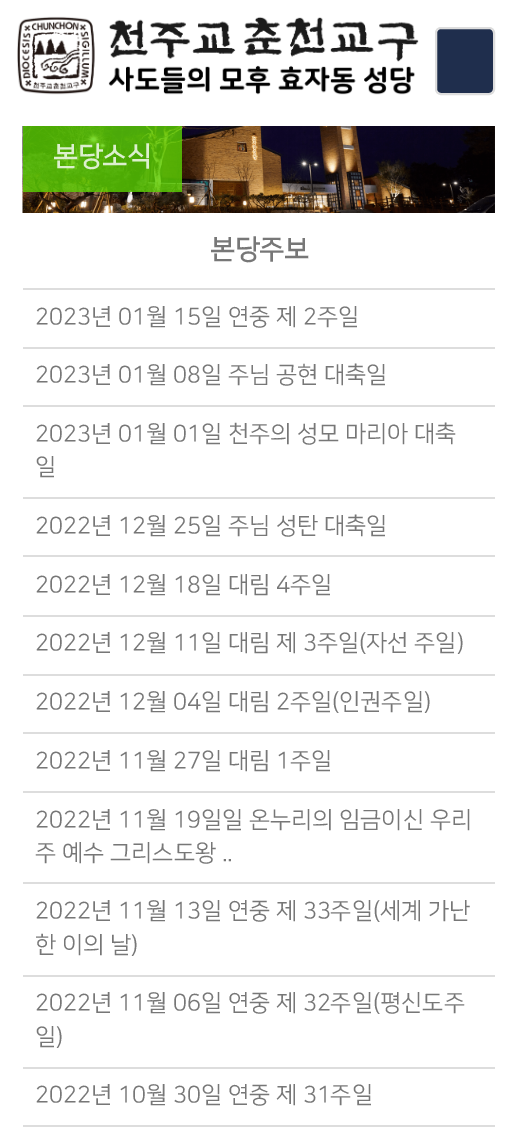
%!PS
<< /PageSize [517 1146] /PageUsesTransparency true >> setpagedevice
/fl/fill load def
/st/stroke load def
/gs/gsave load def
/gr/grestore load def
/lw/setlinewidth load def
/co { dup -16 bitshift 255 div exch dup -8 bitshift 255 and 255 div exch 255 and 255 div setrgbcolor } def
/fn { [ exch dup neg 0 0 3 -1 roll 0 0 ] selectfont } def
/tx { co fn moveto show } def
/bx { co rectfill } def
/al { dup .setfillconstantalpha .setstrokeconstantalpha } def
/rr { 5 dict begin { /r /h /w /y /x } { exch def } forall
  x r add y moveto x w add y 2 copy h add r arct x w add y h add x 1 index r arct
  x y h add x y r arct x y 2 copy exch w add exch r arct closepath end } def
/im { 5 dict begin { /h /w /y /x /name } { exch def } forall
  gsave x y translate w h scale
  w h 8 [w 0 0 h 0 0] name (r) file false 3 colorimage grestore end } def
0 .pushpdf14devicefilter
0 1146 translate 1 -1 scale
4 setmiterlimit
0 0 517 1146 16#FFFFFF bx
(media/1.raw) 17 16 402 79 im
16#1F2E4D co
436 28 58 66 5 rr gs fl gr
16#DDDDDD co
2 lw
st
(media/2.raw) 22 126 473 87 im
0.8 al
23 126 159 66 16#5BD203 bx
1 al
23 288 472 2 16#DDDDDD bx
23 347 472 2 16#DDDDDD bx
23 405 472 2 16#DDDDDD bx
23 497 472 2 16#DDDDDD bx
23 555 472 2 16#DDDDDD bx
23 615 472 2 16#DDDDDD bx
23 674 472 2 16#DDDDDD bx
23 732 472 2 16#DDDDDD bx
23 791 472 2 16#DDDDDD bx
23 882 472 2 16#DDDDDD bx
23 975 472 2 16#DDDDDD bx
23 1067 472 2 16#DDDDDD bx
23 1125 472 2 16#DDDDDD bx
(본당소식) 53 165 /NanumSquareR-Bold 27 16#DCEFCE tx
(본당주보) 210 258 /NanumSquareR-Bold 27 16#777777 tx
(2023년 01월 15일 연중 제 2주일) 35 324 /NanumSquareR-Regular 23.25 16#777777 tx
(2023년 01월 08일 주님 공현 대축일) 35 382 /NanumSquareR-Regular 23.25 16#777777 tx
(2023년 01월 01일 천주의 성모 마리아 대축) 35 441 /NanumSquareR-Regular 23.25 16#777777 tx
(일) 35 474 /NanumSquareR-Regular 23.25 16#777777 tx
(2022년 12월 25일 주님 성탄 대축일) 35 533 /NanumSquareR-Regular 23.25 16#777777 tx
(2022년 12월 18일 대림 4주일) 35 592 /NanumSquareR-Regular 23.25 16#777777 tx
(2022년 12월 11일 대림 제 3주일\(자선 주일\)) 35 650 /NanumSquareR-Regular 23.25 16#777777 tx
(2022년 12월 04일 대림 2주일\(인권주일\)) 35 709 /NanumSquareR-Regular 23.25 16#777777 tx
(2022년 11월 27일 대림 1주일) 35 768 /NanumSquareR-Regular 23.25 16#777777 tx
(2022년 11월 19일일 온누리의 임금이신 우리) 35 827 /NanumSquareR-Regular 23.25 16#777777 tx
(주 예수 그리스도왕 ..) 35 860 /NanumSquareR-Regular 23.25 16#777777 tx
(2022년 11월 13일 연중 제 33주일\(세계 가난) 35 918 /NanumSquareR-Regular 23.25 16#777777 tx
(한 이의 날\)) 35 952 /NanumSquareR-Regular 23.25 16#777777 tx
(2022년 11월 06일 연중 제 32주일\(평신도주) 35 1010 /NanumSquareR-Regular 23.25 16#777777 tx
(일\)) 35 1044 /NanumSquareR-Regular 23.25 16#777777 tx
(2022년 10월 30일 연중 제 31주일) 35 1102 /NanumSquareR-Regular 23.25 16#777777 tx
.poppdf14devicefilter showpage
